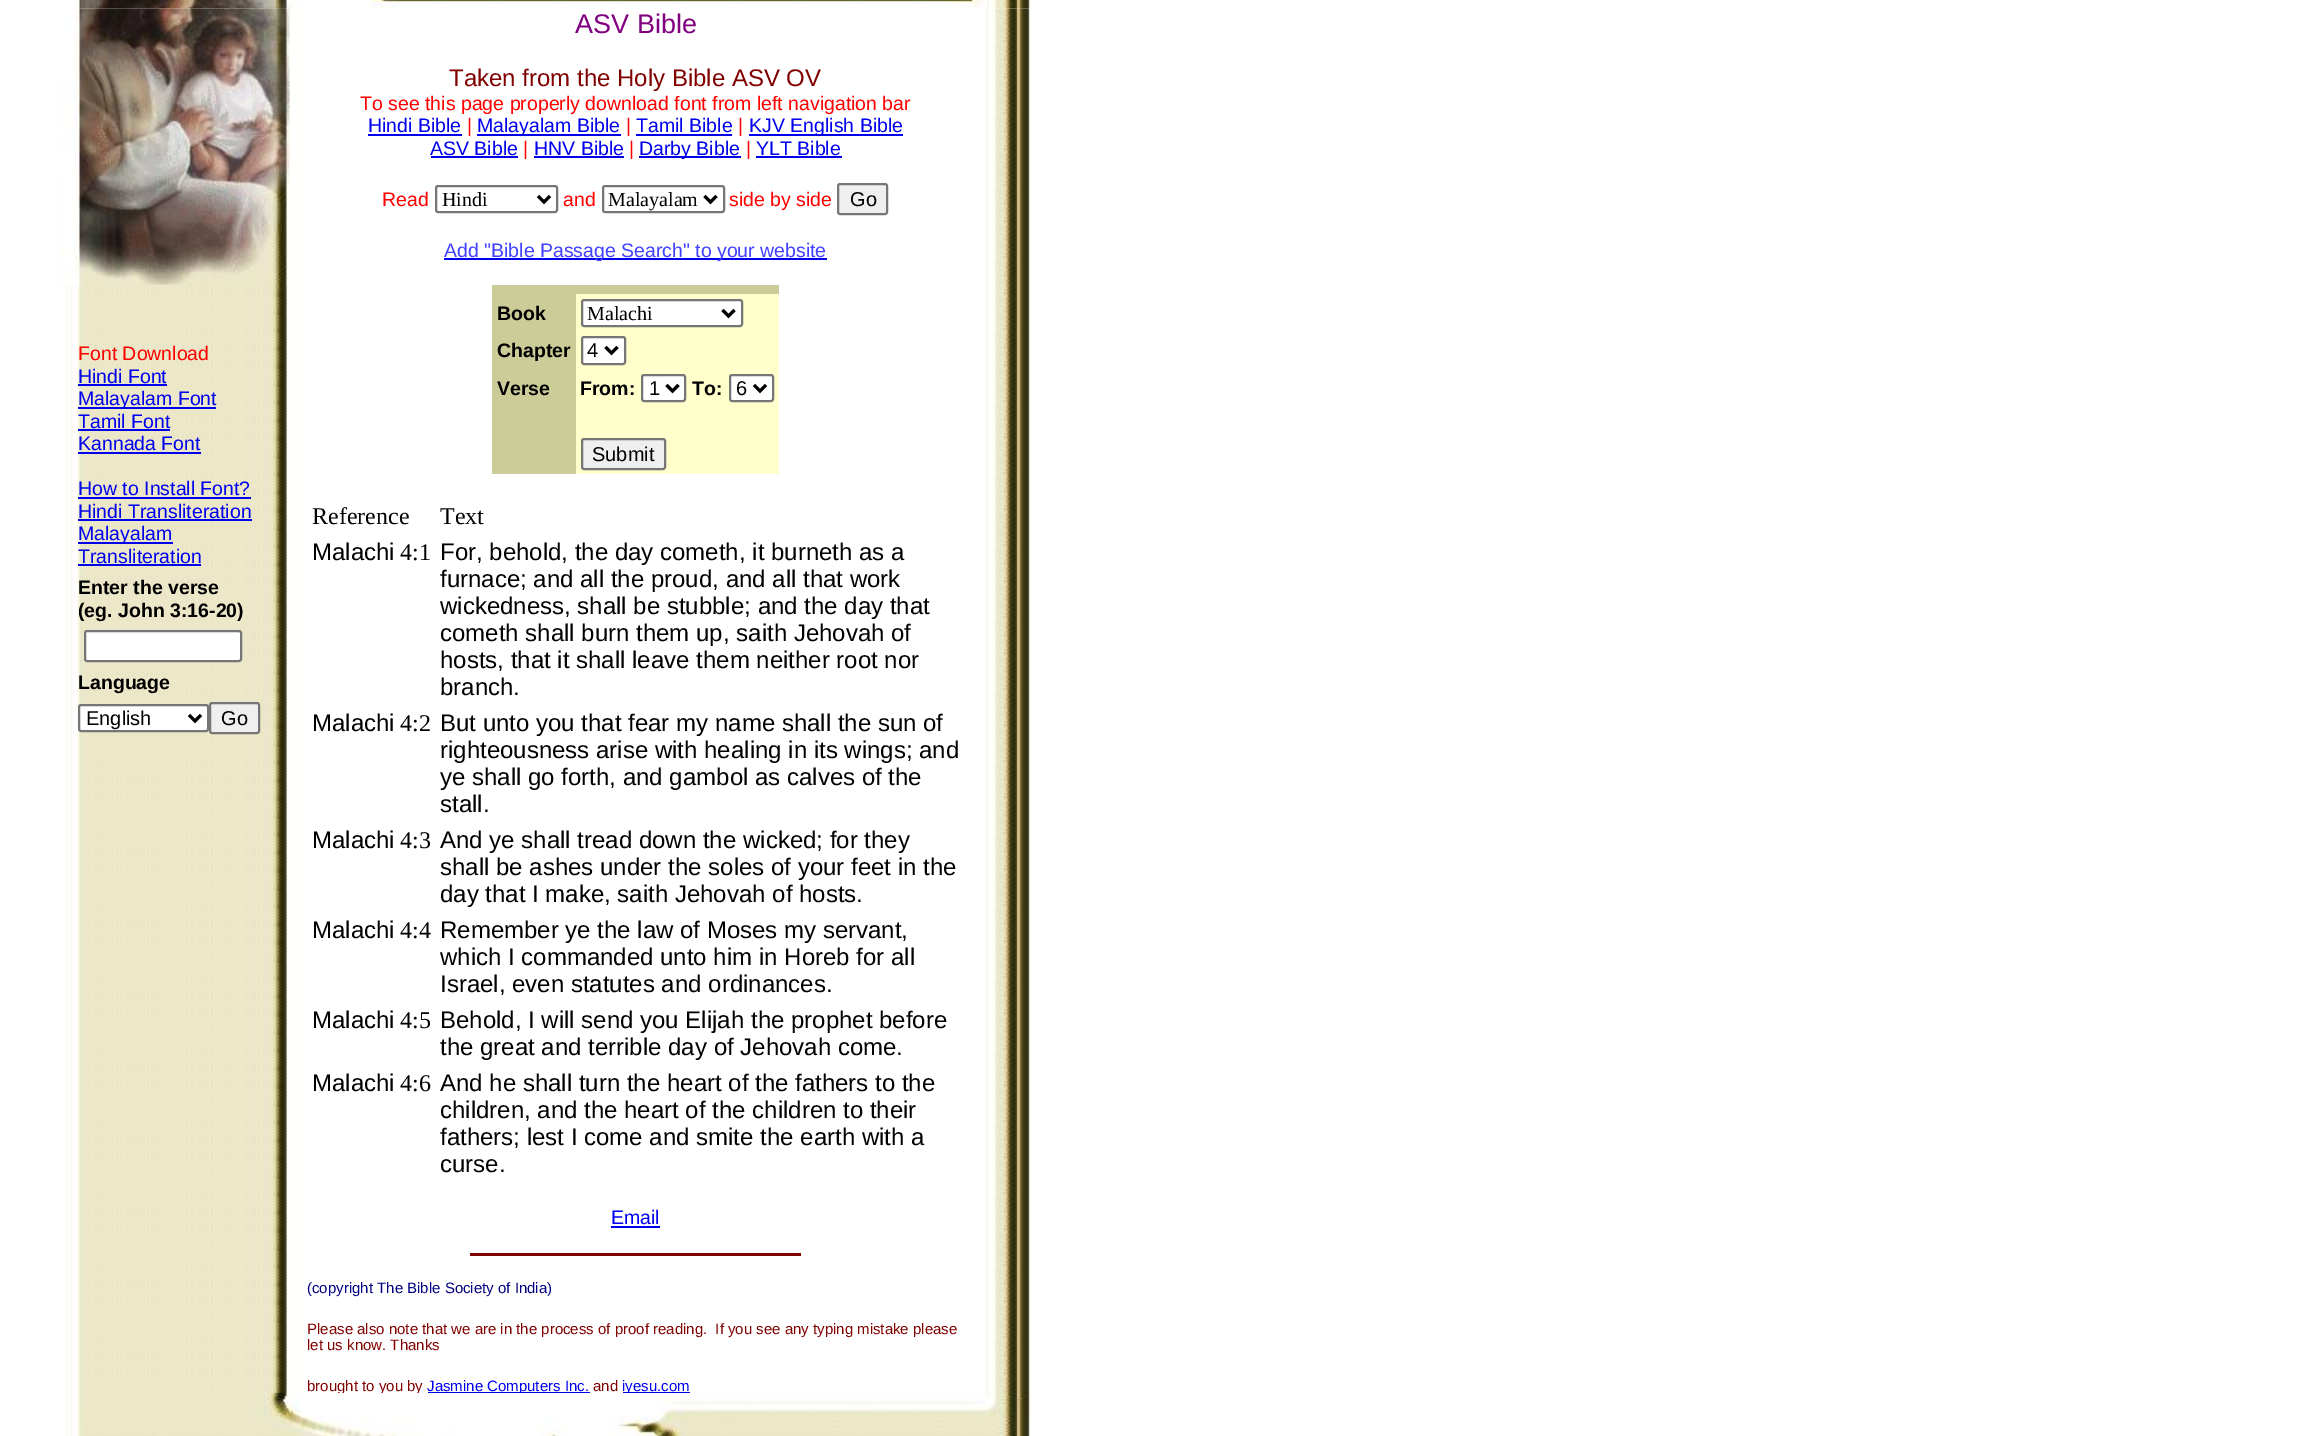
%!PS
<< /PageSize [2309 1436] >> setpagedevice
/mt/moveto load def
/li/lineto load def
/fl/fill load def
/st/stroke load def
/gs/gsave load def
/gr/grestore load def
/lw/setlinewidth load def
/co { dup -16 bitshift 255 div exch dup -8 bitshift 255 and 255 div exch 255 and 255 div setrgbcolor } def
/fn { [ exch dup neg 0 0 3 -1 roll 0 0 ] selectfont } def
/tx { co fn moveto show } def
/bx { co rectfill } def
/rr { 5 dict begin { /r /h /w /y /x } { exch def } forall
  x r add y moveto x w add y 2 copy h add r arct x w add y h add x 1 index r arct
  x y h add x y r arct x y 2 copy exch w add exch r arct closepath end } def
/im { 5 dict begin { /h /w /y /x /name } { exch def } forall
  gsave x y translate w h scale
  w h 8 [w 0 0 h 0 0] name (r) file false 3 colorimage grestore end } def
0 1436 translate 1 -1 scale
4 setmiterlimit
0 0 2309 1436 16#FFFFFF bx
(media/2.raw) 65 8 967 1385 im
(media/1.raw) 76 0 956 9 im
(media/3.raw) 60 8 230 278 im
(media/4.raw) 65 428 4 2 im
78 384 89 2 16#0000EE bx
78 407 138 2 16#0000EE bx
78 429 92 2 16#0000EE bx
78 452 123 2 16#0000EE bx
78 497 173 2 16#0000EE bx
78 519 174 2 16#0000EE bx
78 542 95 2 16#0000EE bx
78 564 123 2 16#0000EE bx
(media/5.raw) 65 598 4 2 im
(media/4.raw) 65 644 4 2 im
16#FFFFFF co
85 631 156 30 2 rr gs fl gr
16#767676 co
2 lw
st
(media/4.raw) 65 680 4 2 im
(media/4.raw) 65 716 4 2 im
16#FFFFFF co
79 705 129 26 2 rr gs fl gr
16#767676 co
st
16#000000 co
3 lw
189 715 mt 195 721 li 201 715 li st
16#EFEFEF co
210 703 49 30 2 rr gs fl gr
16#767676 co
2 lw
st
368 134 94 2 16#0000EE bx
477 134 144 2 16#0000EE bx
636 134 96 2 16#0000EE bx
749 134 154 2 16#0000EE bx
431 156 87 2 16#0000EE bx
534 156 90 2 16#0000EE bx
639 156 102 2 16#0000EE bx
756 156 86 2 16#0000EE bx
16#767676 co
436 186 121 26 2 rr st
16#000000 co
3 lw
538 196 mt 544 202 li 550 196 li st
16#767676 co
2 lw
603 186 121 26 2 rr st
16#000000 co
3 lw
704.5 196 mt 710.5 202 li 716.5 196 li st
16#EFEFEF co
838 184 49 30 2 rr gs fl gr
16#767676 co
2 lw
st
444 258 383 2 16#0000EE bx
492 285 287 9 16#CCCC99 bx
576 294 203 180 16#FFFFCC bx
492 294 84 180 16#CCCC99 bx
16#FFFFFF co
582 300 160 26 2 rr gs fl gr
16#767676 co
st
16#000000 co
3 lw
722.5 310 mt 728.5 316 li 734.5 310 li st
16#FFFFFF co
582 337 43 27 2 rr gs fl gr
16#767676 co
2 lw
st
16#000000 co
3 lw
605.5 347 mt 611.5 353 li 617.5 347 li st
16#FFFFFF co
642 375 43 26 2 rr gs fl gr
16#767676 co
2 lw
st
16#000000 co
3 lw
666.5 385 mt 672.5 391 li 678.5 385 li st
16#FFFFFF co
730 375 43 26 2 rr gs fl gr
16#767676 co
2 lw
st
16#000000 co
3 lw
754 385 mt 760 391 li 766 385 li st
16#EFEFEF co
582 439 83 30 2 rr gs fl gr
16#767676 co
2 lw
st
611 1226 49 2 16#0000EE bx
470 1253 331 3 16#800000 bx
428 1392 162 1 16#0000EE bx
623 1392 67 1 16#0000EE bx
(Font Download) 78 360 /LiberationSans-Regular 19.5 16#FF0000 tx
(Hindi Font) 78 383 /LiberationSans-Regular 19.5 16#0000EE tx
(Malayalam Font) 78 405 /LiberationSans-Regular 19.5 16#0000EE tx
(Tamil Font) 78 428 /LiberationSans-Regular 19.5 16#0000EE tx
(Kannada Font) 78 450 /LiberationSans-Regular 19.5 16#0000EE tx
(How to Install Font?) 78 495 /LiberationSans-Regular 19.5 16#0000EE tx
(Hindi Transliteration) 78 518 /LiberationSans-Regular 19.5 16#0000EE tx
(Malayalam) 78 540 /LiberationSans-Regular 19.5 16#0000EE tx
(Transliteration) 78 563 /LiberationSans-Regular 19.5 16#0000EE tx
(Enter the verse) 78 594 /LiberationSans-Bold 19.5 16#000000 tx
(\(eg. John 3:16-20\)) 78 617 /LiberationSans-Bold 19.5 16#000000 tx
(Language) 78 689 /LiberationSans-Bold 19.5 16#000000 tx
(English) 86 725 /LiberationSans-Regular 20 16#000000 tx
(Go) 221 725 /LiberationSans-Regular 20 16#000000 tx
(ASV Bible) 575 33 /LiberationSans-Regular 27 16#800080 tx
(Taken from the Holy Bible ASV OV) 449 86 /LiberationSans-Regular 24 16#800000 tx
(To see this page properly download font from left navigation bar) 360 110 /LiberationSans-Regular 19.5 16#FF0000 tx
(Hindi Bible) 368 132 /LiberationSans-Regular 19.5 16#0000EE tx
(|) 467 132 /LiberationSans-Regular 19.5 16#FF0000 tx
(Malayalam Bible) 477 132 /LiberationSans-Regular 19.5 16#0000EE tx
(|) 626 132 /LiberationSans-Regular 19.5 16#FF0000 tx
(Tamil Bible) 636 132 /LiberationSans-Regular 19.5 16#0000EE tx
(|) 738 132 /LiberationSans-Regular 19.5 16#FF0000 tx
(KJV English Bible) 749 132 /LiberationSans-Regular 19.5 16#0000EE tx
(ASV Bible) 430 155 /LiberationSans-Regular 19.5 16#0000EE tx
(|) 523 155 /LiberationSans-Regular 19.5 16#FF0000 tx
(HNV Bible) 534 155 /LiberationSans-Regular 19.5 16#0000EE tx
(|) 629 155 /LiberationSans-Regular 19.5 16#FF0000 tx
(Darby Bible) 639 155 /LiberationSans-Regular 19.5 16#0000EE tx
(|) 746 155 /LiberationSans-Regular 19.5 16#FF0000 tx
(YLT Bible) 756 155 /LiberationSans-Regular 19.5 16#0000EE tx
(Read) 382 206 /LiberationSans-Regular 19.5 16#FF0000 tx
(Hindi) 442 206 /LiberationSerif-Regular 20 16#000000 tx
(and) 563 206 /LiberationSans-Regular 19.5 16#FF0000 tx
(Malayalam) 608 206 /LiberationSerif-Regular 20 16#000000 tx
(side by side) 729 206 /LiberationSans-Regular 19.5 16#FF0000 tx
(Go) 850 206 /LiberationSans-Regular 20 16#000000 tx
(Add "Bible Passage Search" to your website) 444 257 /LiberationSans-Regular 19.5 16#4040FF tx
(Book) 497 320 /LiberationSans-Bold 19.5 16#000000 tx
(Malachi) 587 320 /LiberationSerif-Regular 20 16#000000 tx
(Chapter) 497 357 /LiberationSans-Bold 19.5 16#000000 tx
(4) 587 357 /LiberationSans-Regular 20 16#000000 tx
(Verse) 497 395 /LiberationSans-Bold 19.5 16#000000 tx
(From:) 580 395 /LiberationSans-Bold 19.5 16#000000 tx
(1) 649 395 /LiberationSans-Regular 20 16#000000 tx
(To:) 692 395 /LiberationSans-Bold 19.5 16#000000 tx
(6) 736 395 /LiberationSans-Regular 20 16#000000 tx
(Submit) 592 461 /LiberationSans-Regular 20 16#000000 tx
(Reference) 312 524 /LiberationSerif-Regular 24 16#000000 tx
(Text) 440 524 /LiberationSerif-Regular 24 16#000000 tx
(Malachi) 312 560 /LiberationSans-Regular 24 16#000000 tx
(4:1) 400 560 /LiberationSerif-Regular 24 16#000000 tx
(For, behold, the day cometh, it burneth as a) 440 560 /LiberationSans-Regular 24 16#000000 tx
(furnace; and all the proud, and all that work) 440 587 /LiberationSans-Regular 24 16#000000 tx
(wickedness, shall be stubble; and the day that) 440 614 /LiberationSans-Regular 24 16#000000 tx
(cometh shall burn them up, saith Jehovah of) 440 641 /LiberationSans-Regular 24 16#000000 tx
(hosts, that it shall leave them neither root nor) 440 668 /LiberationSans-Regular 24 16#000000 tx
(branch.) 440 695 /LiberationSans-Regular 24 16#000000 tx
(Malachi) 312 731 /LiberationSans-Regular 24 16#000000 tx
(4:2) 400 731 /LiberationSerif-Regular 24 16#000000 tx
(But unto you that fear my name shall the sun of) 440 731 /LiberationSans-Regular 24 16#000000 tx
(righteousness arise with healing in its wings; and) 440 758 /LiberationSans-Regular 24 16#000000 tx
(ye shall go forth, and gambol as calves of the) 440 785 /LiberationSans-Regular 24 16#000000 tx
(stall.) 440 812 /LiberationSans-Regular 24 16#000000 tx
(Malachi) 312 848 /LiberationSans-Regular 24 16#000000 tx
(4:3) 400 848 /LiberationSerif-Regular 24 16#000000 tx
(And ye shall tread down the wicked; for they) 440 848 /LiberationSans-Regular 24 16#000000 tx
(shall be ashes under the soles of your feet in the) 440 875 /LiberationSans-Regular 24 16#000000 tx
(day that I make, saith Jehovah of hosts.) 440 902 /LiberationSans-Regular 24 16#000000 tx
(Malachi) 312 938 /LiberationSans-Regular 24 16#000000 tx
(4:4) 400 938 /LiberationSerif-Regular 24 16#000000 tx
(Remember ye the law of Moses my servant,) 440 938 /LiberationSans-Regular 24 16#000000 tx
(which I commanded unto him in Horeb for all) 440 965 /LiberationSans-Regular 24 16#000000 tx
(Israel, even statutes and ordinances.) 440 992 /LiberationSans-Regular 24 16#000000 tx
(Malachi) 312 1028 /LiberationSans-Regular 24 16#000000 tx
(4:5) 400 1028 /LiberationSerif-Regular 24 16#000000 tx
(Behold, I will send you Elijah the prophet before) 440 1028 /LiberationSans-Regular 24 16#000000 tx
(the great and terrible day of Jehovah come.) 440 1055 /LiberationSans-Regular 24 16#000000 tx
(Malachi) 312 1091 /LiberationSans-Regular 24 16#000000 tx
(4:6) 400 1091 /LiberationSerif-Regular 24 16#000000 tx
(And he shall turn the heart of the fathers to the) 440 1091 /LiberationSans-Regular 24 16#000000 tx
(children, and the heart of the children to their) 440 1118 /LiberationSans-Regular 24 16#000000 tx
(fathers; lest I come and smite the earth with a) 440 1145 /LiberationSans-Regular 24 16#000000 tx
(curse.) 440 1172 /LiberationSans-Regular 24 16#000000 tx
(Email) 611 1224 /LiberationSans-Regular 19.5 16#0000EE tx
(\(copyright The Bible Society of India\)) 307 1293 /LiberationSans-Regular 15 16#000080 tx
(Please also note that we are in the process of proof reading.  If you see any typing mistake please) 307 1334 /LiberationSans-Regular 15 16#800000 tx
(let us know. Thanks) 307 1350 /LiberationSans-Regular 15 16#800000 tx
(brought to you by) 307 1391 /LiberationSans-Regular 15 16#800000 tx
(Jasmine Computers Inc.) 427 1391 /LiberationSans-Regular 15 16#0000EE tx
(and) 593 1391 /LiberationSans-Regular 15 16#800000 tx
(iyesu.com) 622 1391 /LiberationSans-Regular 15 16#0000EE tx
(media/6.raw) 65 1393 967 43 im
showpage
